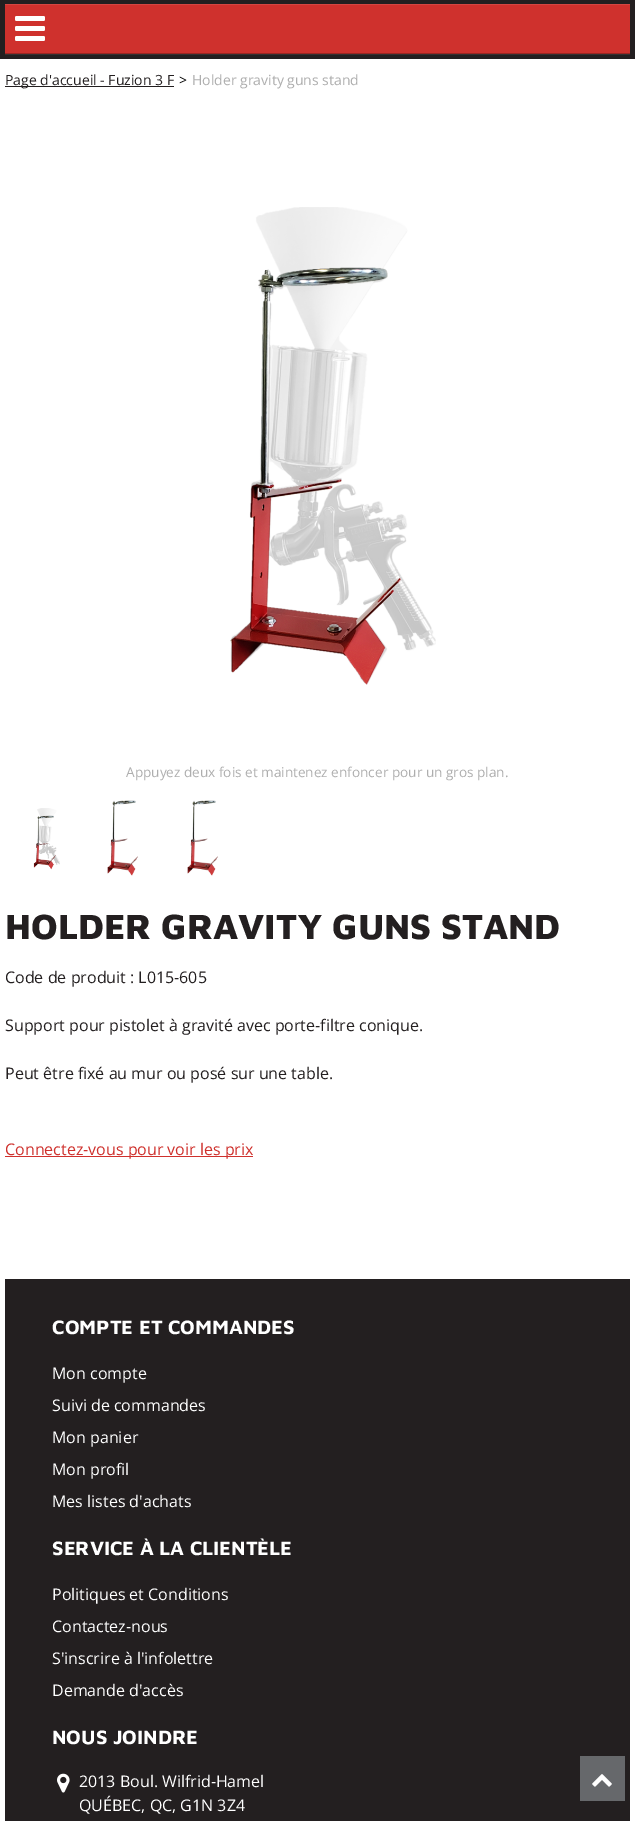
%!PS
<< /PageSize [635 1821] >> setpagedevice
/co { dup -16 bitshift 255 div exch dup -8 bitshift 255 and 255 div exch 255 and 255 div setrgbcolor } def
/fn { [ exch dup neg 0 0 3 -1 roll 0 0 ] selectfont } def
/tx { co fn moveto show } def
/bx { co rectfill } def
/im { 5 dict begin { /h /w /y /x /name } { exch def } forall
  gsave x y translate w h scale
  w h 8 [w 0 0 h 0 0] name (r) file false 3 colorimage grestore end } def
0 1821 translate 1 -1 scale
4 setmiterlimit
0 0 635 1821 16#FFFFFF bx
0 0 635 59 16#231F20 bx
5 54 625 1 16#343031 bx
5 5 625 48 16#CF312D bx
5 4 625 1 16#D44642 bx
5 53 625 1 16#9B2522 bx
(media/1.raw) 15 16 30 25 im
5 86 169 1 16#231F20 bx
(media/2.raw) 230 207 206 478 im
(media/3.raw) 33 808 27 62 im
(media/4.raw) 107 800 31 76 im
(media/4.raw) 187 800 31 76 im
5 1156 248 1 16#CF312D bx
5 1279 625 542 16#231F20 bx
(media/5.raw) 57 1773 13 20 im
580 1756 45 45 16#66686B bx
(media/6.raw) 592 1774 20 13 im
(Page d'accueil - Fuzion 3 F) 5 85 /OpenSans-Regular 14 16#231F20 tx
(>) 179 85 /OpenSans-Regular 14 16#000000 tx
(Holder gravity guns stand) 192 85 /OpenSans-Regular 14 16#AEAEAE tx
(Appuyez deux fois et maintenez enfoncer pour un gros plan.) 126 777 /OpenSans-Regular 13.6 16#AEAEAE tx
(HOLDER GRAVITY GUNS STAND) 5 939 /MavenPro-ExtraBold 36 16#231F20 tx
(Code de produit : L015-605) 5 983 /OpenSans-Regular 16 16#231F20 tx
(Support pour pistolet à gravité avec porte-filtre conique.) 5 1031 /OpenSans-Regular 16 16#231F20 tx
(Peut être fixé au mur ou posé sur une table.) 5 1079 /OpenSans-Regular 16 16#231F20 tx
(Connectez-vous pour voir les prix) 5 1155 /OpenSans-Regular 16 16#CF312D tx
(COMPTE ET COMMANDES) 52 1334 /MavenPro-Bold 20 16#FFFFFF tx
(Mon compte) 52 1379 /OpenSans-Regular 16 16#FFFFFF tx
(Suivi de commandes) 52 1411 /OpenSans-Regular 16 16#FFFFFF tx
(Mon panier) 52 1443 /OpenSans-Regular 16 16#FFFFFF tx
(Mon profil) 52 1475 /OpenSans-Regular 16 16#FFFFFF tx
(Mes listes d'achats) 52 1507 /OpenSans-Regular 16 16#FFFFFF tx
(SERVICE À LA CLIENTÈLE) 52 1555 /MavenPro-Bold 20 16#FFFFFF tx
(Politiques et Conditions) 52 1600 /OpenSans-Regular 16 16#FFFFFF tx
(Contactez-nous) 52 1632 /OpenSans-Regular 16 16#FFFFFF tx
(S'inscrire à l'infolettre) 52 1664 /OpenSans-Regular 16 16#FFFFFF tx
(Demande d'accès) 52 1696 /OpenSans-Regular 16 16#FFFFFF tx
(NOUS JOINDRE) 52 1744 /MavenPro-Bold 20 16#FFFFFF tx
(2013 Boul. Wilfrid-Hamel) 79 1787 /OpenSans-Regular 16 16#FFFFFF tx
(QUÉBEC, QC, G1N 3Z4) 79 1811 /OpenSans-Regular 16 16#FFFFFF tx
showpage
